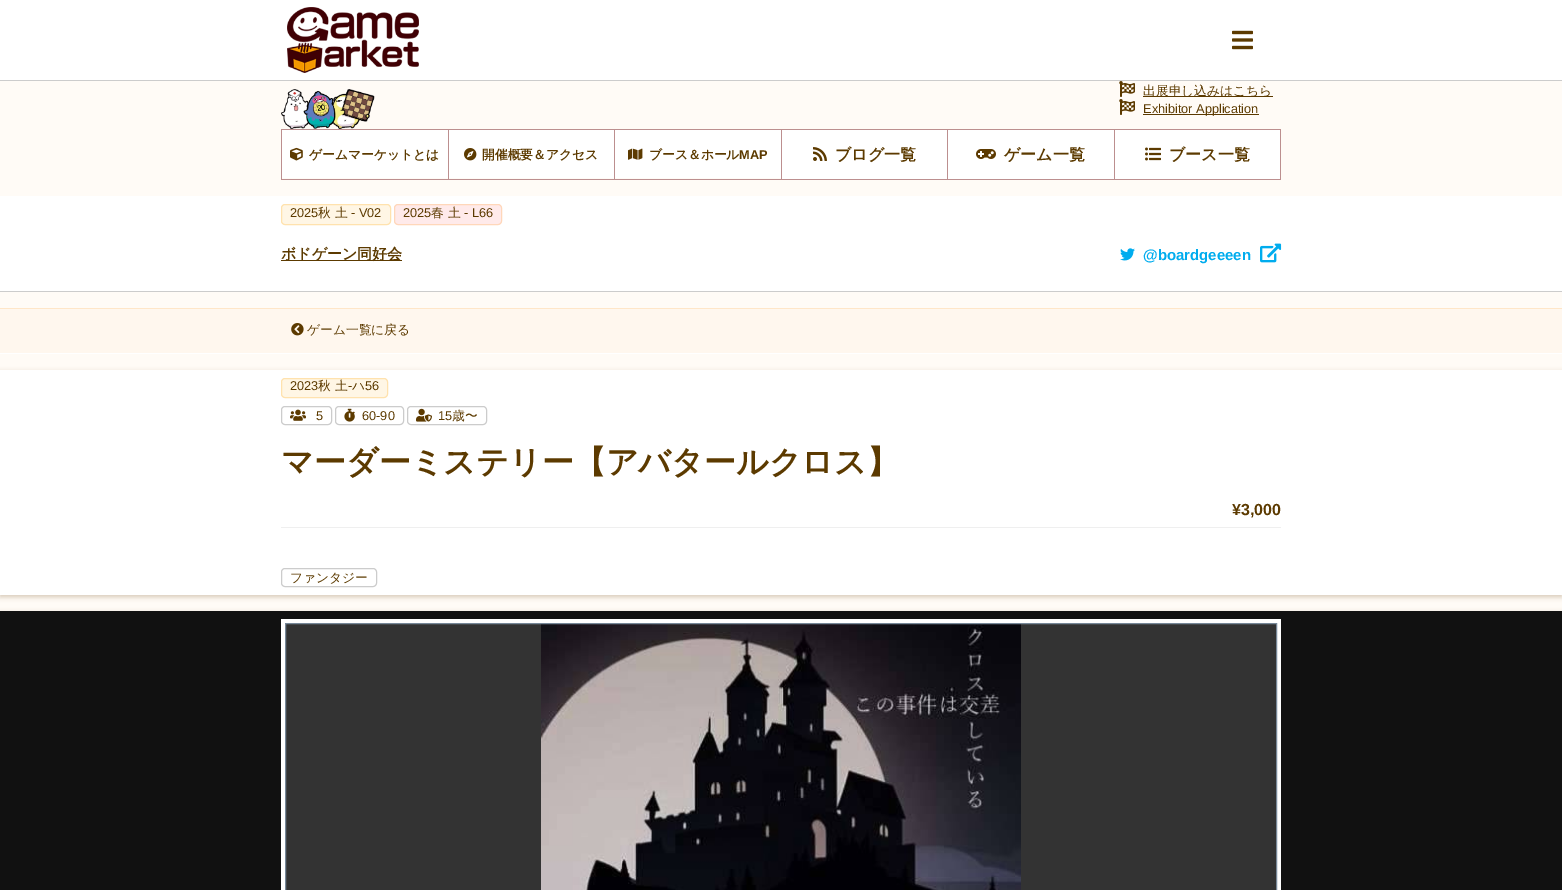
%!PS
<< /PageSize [1562 890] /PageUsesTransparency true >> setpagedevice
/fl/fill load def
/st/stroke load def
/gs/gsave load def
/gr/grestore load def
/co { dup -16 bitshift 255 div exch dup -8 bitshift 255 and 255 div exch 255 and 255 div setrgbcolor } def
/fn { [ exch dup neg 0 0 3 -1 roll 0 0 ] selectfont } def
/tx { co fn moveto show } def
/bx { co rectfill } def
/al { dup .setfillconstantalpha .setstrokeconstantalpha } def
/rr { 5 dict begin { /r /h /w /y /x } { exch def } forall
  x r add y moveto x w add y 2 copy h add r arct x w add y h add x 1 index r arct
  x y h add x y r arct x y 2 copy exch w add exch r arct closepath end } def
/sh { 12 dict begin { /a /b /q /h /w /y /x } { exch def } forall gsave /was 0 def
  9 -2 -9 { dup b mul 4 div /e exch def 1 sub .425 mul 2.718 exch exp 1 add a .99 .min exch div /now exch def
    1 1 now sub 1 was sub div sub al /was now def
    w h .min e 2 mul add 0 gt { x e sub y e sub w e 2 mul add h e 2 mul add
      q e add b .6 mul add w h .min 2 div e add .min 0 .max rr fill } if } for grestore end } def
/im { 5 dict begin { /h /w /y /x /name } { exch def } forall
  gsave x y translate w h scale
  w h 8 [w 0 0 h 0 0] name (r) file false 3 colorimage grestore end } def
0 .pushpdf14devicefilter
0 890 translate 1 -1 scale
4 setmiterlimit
0 0 1562 890 16#FFFBF6 bx
0 0 1562 80 16#FFFFFF bx
0 80 1562 1 16#CCCCCC bx
(media/1.raw) 287 7 132 66 im
(media/2.raw) 1232 30 21 20 im
(media/3.raw) 1119 81 16 16 im
1143 96 130 1 16#5C3A00 bx
(media/3.raw) 1119 99 16 16 im
1143 114 116 1 16#5C3A00 bx
(media/4.raw) 281 89 94 40 im
281 129 1 51 16#BC8F8F bx
282 129 999 1 16#BC8F8F bx
448 129 1 51 16#BC8F8F bx
282 179 167 1 16#BC8F8F bx
282 130 166 48 16#FFFFFF bx
(media/5.raw) 290 147 13 14 im
614 129 1 51 16#BC8F8F bx
449 179 166 1 16#BC8F8F bx
449 130 165 48 16#FFFFFF bx
(media/6.raw) 464 148 13 13 im
781 129 1 51 16#BC8F8F bx
615 179 167 1 16#BC8F8F bx
615 130 166 48 16#FFFFFF bx
(media/7.raw) 628 148 15 12 im
947 129 1 51 16#BC8F8F bx
782 179 166 1 16#BC8F8F bx
782 130 165 49 16#FFFFFF bx
(media/8.raw) 813 147 14 14 im
1114 129 1 51 16#BC8F8F bx
948 179 167 1 16#BC8F8F bx
948 130 166 49 16#FFFFFF bx
(media/9.raw) 976 149 20 10 im
1280 129 1 51 16#BC8F8F bx
1115 179 166 1 16#BC8F8F bx
1115 130 165 49 16#FFFFFF bx
(media/10.raw) 1145 147 16 14 im
0 196 1562 95 16#FFFFFF bx
0 291 1562 1 16#CCCCCC bx
16#FFF6E5 co
281.5 204.5 109 20 3.5 rr gs fl gr
16#FFE2AE co
st
16#FFEAEA co
394.5 204.5 107 20 3.5 rr gs fl gr
16#FFD7BA co
st
281 260 121 1 16#5C3A00 bx
(media/11.raw) 1120 248 15 13 im
(media/12.raw) 1260 243 22 20 im
0 309 1562 44 16#FFF7EE bx
0 308 1562 1 16#FFE6C8 bx
0 353 1562 1 16#FFFFFF bx
(media/13.raw) 291 323 13 13 im
16#5C3A00 co
0 372 1562 225 0 2.5 .25 sh
0 370 1562 225 16#FFFFFF bx
16#FFF6E5 co
281.5 378.5 106 19 3.5 rr gs fl gr
16#FFE2AE co
st
16#CCCCCC co
281.5 406.5 50 18 3.5 rr st
(media/14.raw) 290 409 16 12 im
335.5 406.5 68 18 3.5 rr st
(media/15.raw) 344 408 11 14 im
407.5 406.5 79 18 3.5 rr st
(media/16.raw) 416 408 16 14 im
281 527 1000 1 16#EFEFEF bx
16#CCCCCC co
281.5 568.5 95 18 3.5 rr st
16#5C3A00 co
0 613 1562 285 0 2.5 .25 sh
0 611 1562 279 16#111111 bx
281 619 1000 271 16#FFFFFF bx
286 624 990 266 16#333333 bx
(media/17.raw) 541 624 480 266 im
16#778899 co
285.5 623.5 991 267 rectstroke
(出展申し込みはこちら) 1143 95 /WenQuanYiZenHei-Medium 12.75 16#5C3A00 tx
(Exhibitor Application) 1143 113 /LiberationSans-Regular 12.75 16#5C3A00 tx
(ゲームマーケットとは) 309 159 /WenQuanYiZenHei-Bold 12.75 16#5C3A00 tx
(開催概要＆アクセス) 482 159 /WenQuanYiZenHei-Bold 12.75 16#5C3A00 tx
(ブース＆ホール) 649 159 /WenQuanYiZenHei-Bold 12.75 16#5C3A00 tx
(MAP) 739 159 /LiberationSans-Bold 12.75 16#5C3A00 tx
(ブログ一覧) 835 160 /WenQuanYiZenHei-Bold 16 16#5C3A00 tx
(ゲーム一覧) 1004 160 /WenQuanYiZenHei-Bold 16 16#5C3A00 tx
(ブース一覧) 1169 160 /WenQuanYiZenHei-Bold 16 16#5C3A00 tx
(2025) 290 217 /LiberationSans-Regular 12.75 16#5C3A00 tx
(秋 土) 318 217 /WenQuanYiZenHei-Medium 12.75 16#5C3A00 tx
(- V02) 351 217 /LiberationSans-Regular 12.75 16#5C3A00 tx
(2025) 403 217 /LiberationSans-Regular 12.75 16#5C3A00 tx
(春 土) 431 217 /WenQuanYiZenHei-Medium 12.75 16#5C3A00 tx
(- L66) 464 217 /LiberationSans-Regular 12.75 16#5C3A00 tx
(ボドゲーン同好会) 281 259 /WenQuanYiZenHei-Bold 15 16#5C3A00 tx
(@boardgeeeen) 1143 260 /LiberationSans-Bold 15 16#00ACEE tx
(ゲーム一覧に戻る) 307 334 /WenQuanYiZenHei-Medium 12.75 16#5C3A00 tx
(2023) 290 390 /LiberationSans-Regular 12.75 16#5C3A00 tx
(秋 土) 318 390 /WenQuanYiZenHei-Medium 12.75 16#5C3A00 tx
(-) 348 390 /LiberationSans-Regular 12.75 16#5C3A00 tx
(ハ) 352 390 /WenQuanYiZenHei-Medium 12.75 16#5C3A00 tx
(56) 365 390 /LiberationSans-Regular 12.75 16#5C3A00 tx
(5) 316 420 /LiberationSans-Regular 12.75 16#5C3A00 tx
(60-90) 362 420 /LiberationSans-Regular 12.75 16#5C3A00 tx
(15) 438 420 /LiberationSans-Regular 12.75 16#5C3A00 tx
(歳〜) 452 420 /WenQuanYiZenHei-Medium 12.75 16#5C3A00 tx
(マーダーミステリー【アバタールクロス】) 281 473 /WenQuanYiZenHei-Bold 32 16#5C3A00 tx
(¥3,000) 1232 515 /LiberationSans-Bold 16 16#5C3A00 tx
(ファンタジー) 290 582 /WenQuanYiZenHei-Medium 12.75 16#5C3A00 tx
.poppdf14devicefilter showpage
